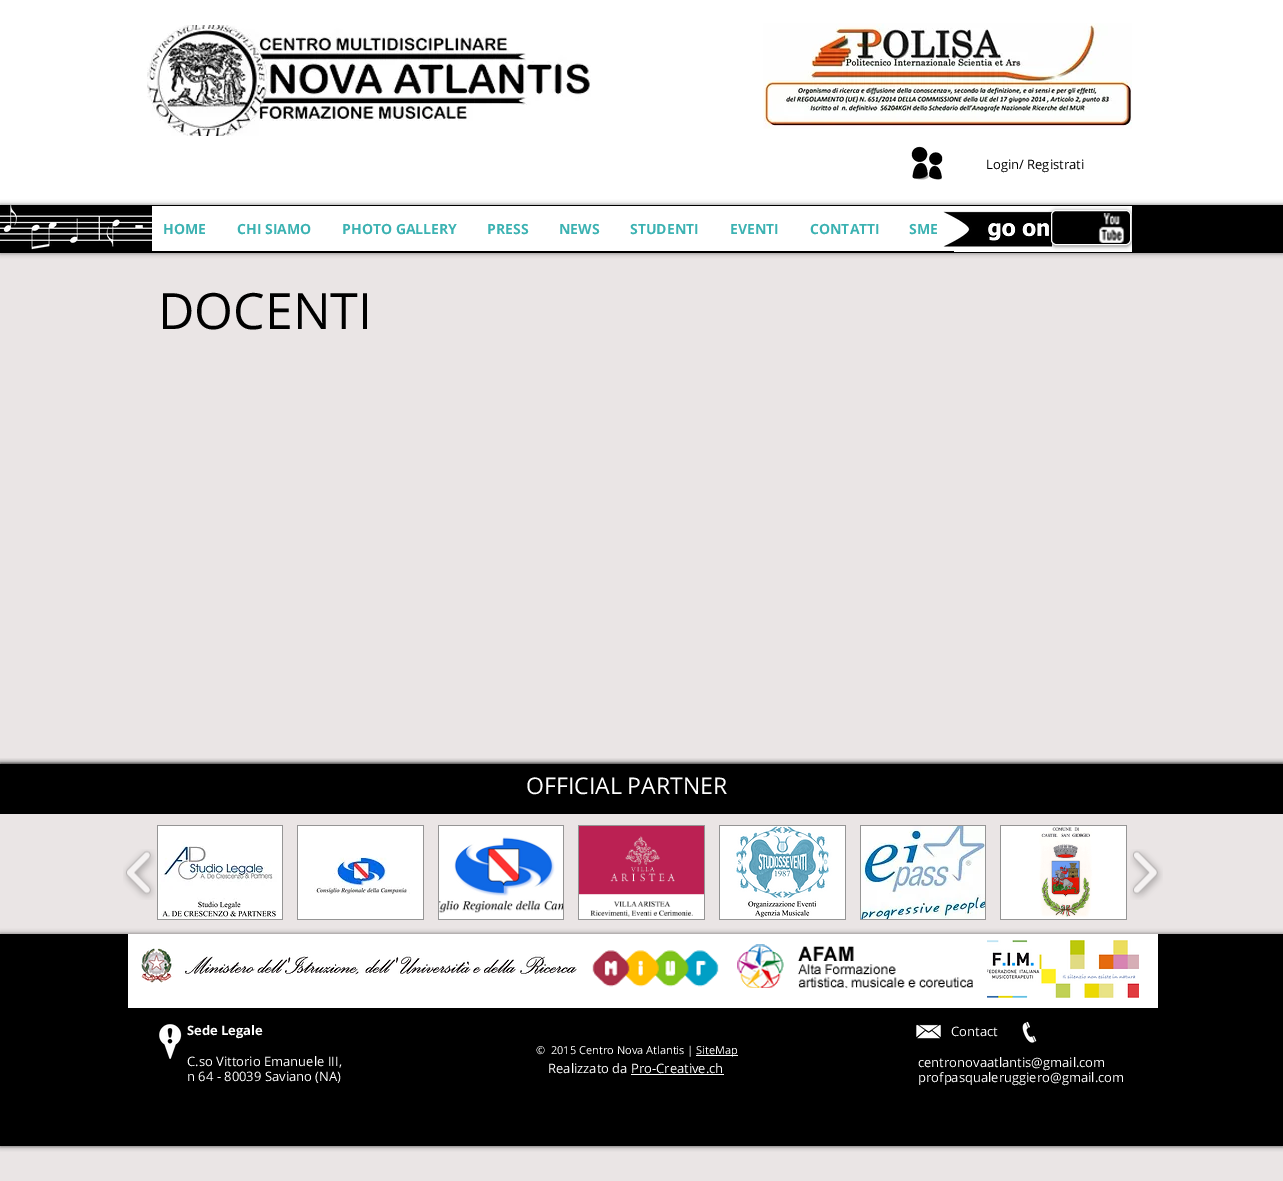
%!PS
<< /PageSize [1283 1181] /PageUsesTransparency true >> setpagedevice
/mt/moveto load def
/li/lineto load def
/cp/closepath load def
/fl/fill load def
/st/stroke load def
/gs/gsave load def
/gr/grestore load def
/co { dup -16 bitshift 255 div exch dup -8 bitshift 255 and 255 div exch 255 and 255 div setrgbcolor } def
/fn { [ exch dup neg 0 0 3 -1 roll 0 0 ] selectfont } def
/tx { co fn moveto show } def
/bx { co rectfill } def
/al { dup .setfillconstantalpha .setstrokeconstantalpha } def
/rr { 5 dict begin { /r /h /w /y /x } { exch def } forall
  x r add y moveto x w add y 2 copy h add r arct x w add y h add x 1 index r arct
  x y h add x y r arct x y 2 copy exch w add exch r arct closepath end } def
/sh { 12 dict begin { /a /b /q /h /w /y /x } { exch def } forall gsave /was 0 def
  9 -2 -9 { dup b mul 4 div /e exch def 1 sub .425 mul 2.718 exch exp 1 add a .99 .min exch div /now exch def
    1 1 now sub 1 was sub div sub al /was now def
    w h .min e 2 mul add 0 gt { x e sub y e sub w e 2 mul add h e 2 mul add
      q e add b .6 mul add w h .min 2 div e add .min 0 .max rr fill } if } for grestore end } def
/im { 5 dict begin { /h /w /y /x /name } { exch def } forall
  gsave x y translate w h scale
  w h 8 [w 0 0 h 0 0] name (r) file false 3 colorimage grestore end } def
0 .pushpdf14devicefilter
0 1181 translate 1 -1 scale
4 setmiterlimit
0 0 1283 1181 16#EAE5E5 bx
0 0 1283 205 16#FFFFFF bx
(media/1.raw) 147 25 444 111 im
(media/2.raw) 763 23 369 106 im
(media/3.raw) 911 146 32 34 im
16#000000 co
0 205 1283 48 0 2.5 .5 sh
0 205 1283 48 16#000000 bx
152 206 980 46 16#FFFFFF bx
(media/4.raw) 0 205 152 45 im
147 251 807 1 16#000000 bx
(media/5.raw) 943 211 109 36 im
1051 211 80 35 5 2 .6 sh
1051.5 210.5 79 34 4.5 rr gs fl gr
16#FFFFFF co
st
(media/6.raw) 1098 213 27 30 im
16#000000 co
0 764 1283 382 0 2.5 .7 sh
0 764 1283 382 16#000000 bx
gs
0 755 mt 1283 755 li 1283 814 li 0 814 li cp 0 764 mt 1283 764 li 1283 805 li 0 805 li cp eoclip newpath
0 764 1283 41 0 2.5 .7 sh
gr
0 814 1283 120 16#EAE5E5 bx
(media/7.raw) 123 849 33 51 im
157 825 126 95 16#959595 bx
(media/8.raw) 158 826 124 93 im
297 825 127 95 16#959595 bx
(media/9.raw) 298 826 125 93 im
438 825 126 95 16#959595 bx
(media/10.raw) 439 826 124 93 im
578 825 127 95 16#959595 bx
(media/11.raw) 579 826 125 93 im
719 825 127 95 16#959595 bx
(media/12.raw) 720 826 125 93 im
860 825 126 95 16#959595 bx
(media/13.raw) 861 826 124 93 im
1000 825 127 95 16#959595 bx
(media/14.raw) 1001 826 125 93 im
(media/15.raw) 1130 849 33 51 im
gs
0 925 mt 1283 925 li 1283 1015 li 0 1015 li cp 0 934 mt 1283 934 li 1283 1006 li 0 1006 li cp eoclip newpath
16#000000 co
0 934 1283 72 0 2.5 .5 sh
gr
128 934 1030 74 16#FFFFFF bx
(media/16.raw) 141 948 436 35 im
(media/17.raw) 592 950 127 37 im
(media/18.raw) 737 944 236 44 im
(media/19.raw) 987 940 152 58 im
(media/20.raw) 159 1024 23 35 im
(media/21.raw) 916 1024 25 15 im
(media/22.raw) 1022 1021 15 22 im
696 1055 42 1 16#FFFFFF bx
631 1074 93 1 16#FFFFFF bx
(Login/ Registrati) 986 169 /OpenSans-Regular 13 16#000000 tx
(HOME) 163 234 /OpenSans-Bold 14 16#3CB2B2 tx
(CHI SIAMO) 237 234 /OpenSans-Bold 14 16#3CB2B2 tx
(PHOTO GALLERY) 342 234 /OpenSans-Bold 14 16#3CB2B2 tx
(PRESS) 487 234 /OpenSans-Bold 14 16#3CB2B2 tx
(NEWS) 559 234 /OpenSans-Bold 14 16#3CB2B2 tx
(STUDENTI) 630 234 /OpenSans-Bold 14 16#3CB2B2 tx
(EVENTI) 730 234 /OpenSans-Bold 14 16#3CB2B2 tx
(CONTATTI) 810 234 /OpenSans-Bold 14 16#3CB2B2 tx
(SME) 909 234 /OpenSans-Bold 14 16#3CB2B2 tx
(DOCENTI) 158 329 /OpenSans-Regular 50 16#000000 tx
(OFFICIAL PARTNER) 526 794 /OpenSans-Regular 23 16#FFFFFF tx
(Sede Legale) 187 1035 /OpenSans-Bold 13 16#FFFFFF tx
(C.so Vittorio Emanuele III,) 187 1066 /OpenSans-Regular 13 16#FFFFFF tx
(n 64 - 80039 Saviano \(NA\)) 187 1081 /OpenSans-Regular 13 16#FFFFFF tx
(©  2015 Centro Nova Atlantis |) 536 1054 /OpenSans-Regular 11 16#FFFFFF tx
(SiteMap) 696 1054 /OpenSans-Regular 11 16#FFFFFF tx
(Contact) 951 1036 /OpenSans-Regular 13 16#FFFFFF tx
(centronovaatlantis@gmail.com) 918 1067 /OpenSans-Regular 13 16#FFFFFF tx
(profpasqualeruggiero@gmail.com) 918 1082 /OpenSans-Regular 13 16#FFFFFF tx
(Realizzato da Pro-Creative.ch) 548 1073 /OpenSans-Regular 13 16#FFFFFF tx
.poppdf14devicefilter showpage
